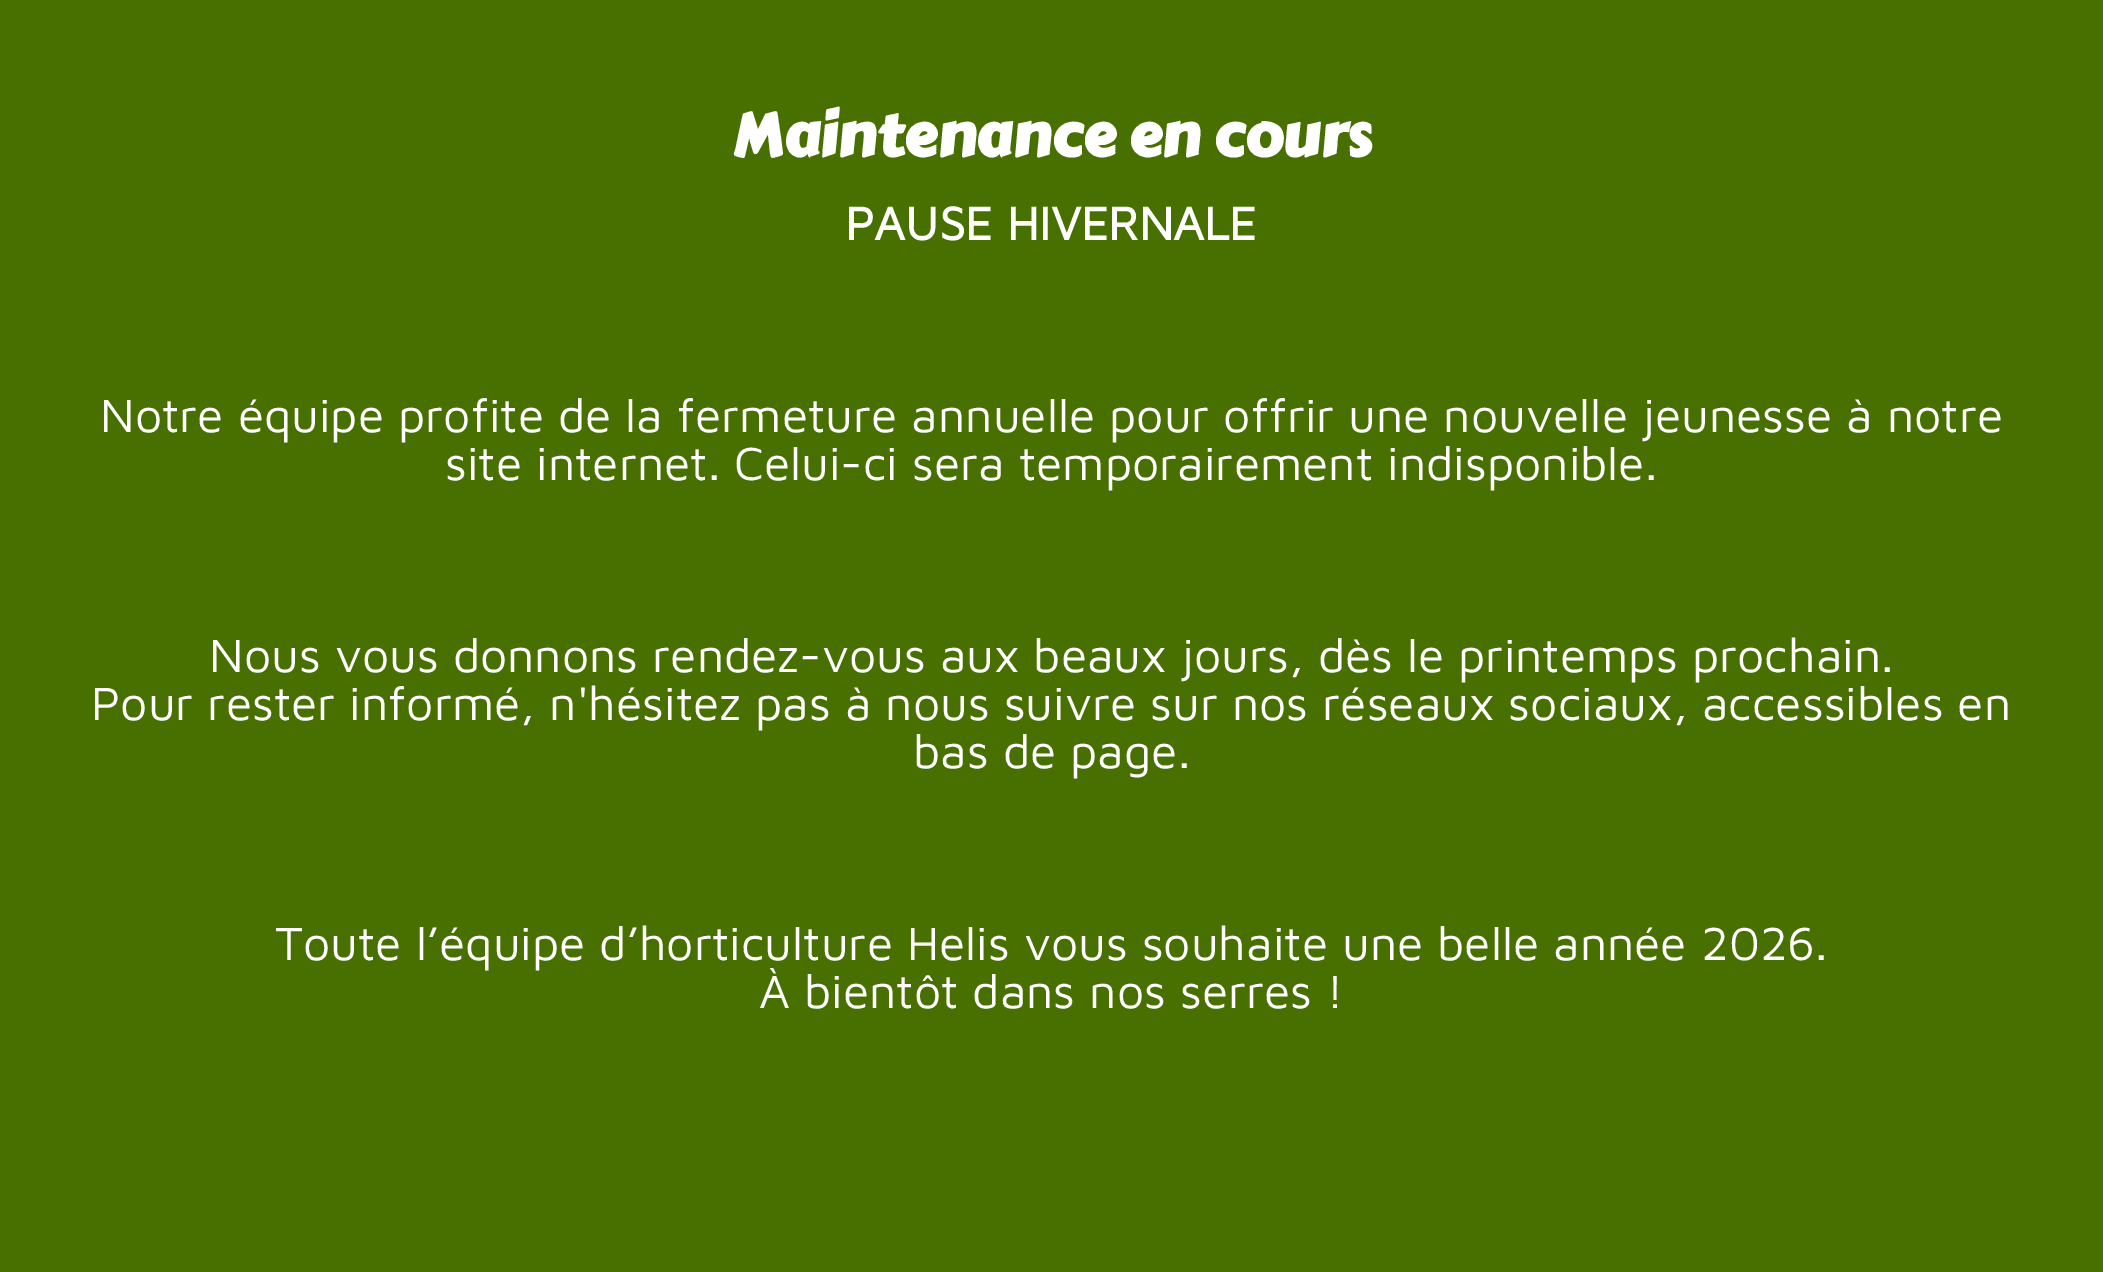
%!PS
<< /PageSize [2103 1272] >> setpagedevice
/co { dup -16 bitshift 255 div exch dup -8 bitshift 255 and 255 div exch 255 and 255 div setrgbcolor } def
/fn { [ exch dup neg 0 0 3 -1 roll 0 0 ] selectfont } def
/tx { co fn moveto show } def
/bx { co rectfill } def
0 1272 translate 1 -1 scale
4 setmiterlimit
0 0 2103 1272 16#487000 bx
(Maintenance en cours) 732 156 /CarterOne-Bold 60 16#FFFFFF tx
(PAUSE HIVERNALE) 845 240 /MavenPro-Bold 48 16#FFFFFF tx
(Notre équipe profite de la fermeture annuelle pour offrir une nouvelle jeunesse à notre) 100 432 /MavenPro-Regular 48 16#FFFFFF tx
(site internet. Celui-ci sera temporairement indisponible.) 445 480 /MavenPro-Regular 48 16#FFFFFF tx
(Nous vous donnons rendez-vous aux beaux jours, dès le printemps prochain.) 209 672 /MavenPro-Regular 48 16#FFFFFF tx
(Pour rester informé, n'hésitez pas à nous suivre sur nos réseaux sociaux, accessibles en) 91 720 /MavenPro-Regular 48 16#FFFFFF tx
(bas de page.) 913 768 /MavenPro-Regular 48 16#FFFFFF tx
(Toute l’équipe d’horticulture Helis vous souhaite une belle année 2026.) 275 960 /MavenPro-Regular 48 16#FFFFFF tx
(À bientôt dans nos serres !) 759 1008 /MavenPro-Regular 48 16#FFFFFF tx
showpage
